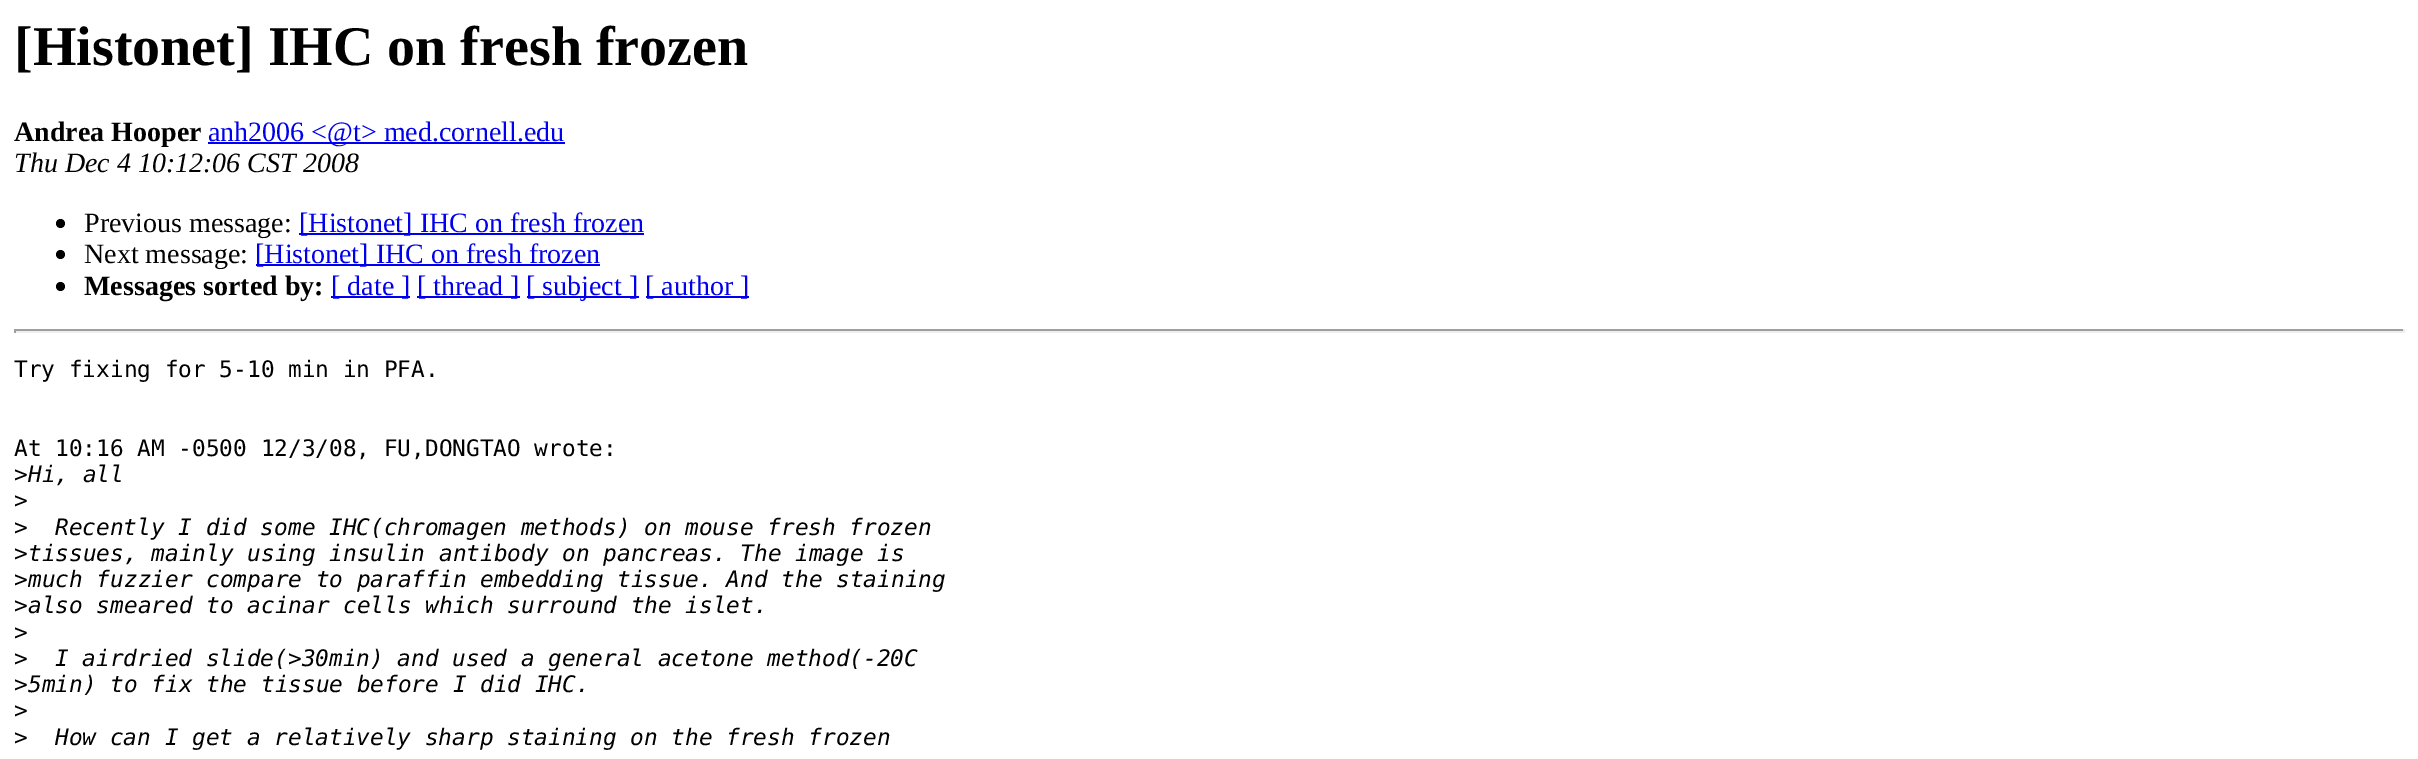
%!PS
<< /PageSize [2418 759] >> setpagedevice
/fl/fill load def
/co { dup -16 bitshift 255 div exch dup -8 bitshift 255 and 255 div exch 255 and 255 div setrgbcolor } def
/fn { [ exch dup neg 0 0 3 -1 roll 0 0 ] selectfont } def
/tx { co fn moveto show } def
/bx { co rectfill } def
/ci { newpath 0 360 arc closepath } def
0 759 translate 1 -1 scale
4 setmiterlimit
0 0 2418 759 16#FFFFFF bx
208 142 357 2 16#0000EE bx
16#000000 co
60.5 223.5 4.5 ci fl
299 233 345 2 16#0000EE bx
16#000000 co
60.5 254.5 4.5 ci fl
256 264 344 2 16#0000EE bx
16#000000 co
60.5 286.5 4.5 ci fl
331 296 79 2 16#0000EE bx
417 296 103 2 16#0000EE bx
527 296 112 2 16#0000EE bx
646 296 103 2 16#0000EE bx
14 329 2391 2 16#9F9F9F bx
2403 329 2 4 16#EEEEEE bx
14 331 2391 2 16#EEEEEE bx
14 329 2 4 16#9F9F9F bx
([Histonet] IHC on fresh frozen) 14 65 /LiberationSerif-Bold 56 16#000000 tx
(Andrea Hooper) 14 141 /LiberationSerif-Bold 28 16#000000 tx
(anh2006 <@t> med.cornell.edu) 208 141 /LiberationSerif-Regular 28 16#0000EE tx
(Thu Dec 4 10:12:06 CST 2008) 14 172 /LiberationSerif-Italic 28 16#000000 tx
(Previous message:) 84 232 /LiberationSerif-Regular 28 16#000000 tx
([Histonet] IHC on fresh frozen) 299 232 /LiberationSerif-Regular 28 16#0000EE tx
(Next message:) 84 263 /LiberationSerif-Regular 28 16#000000 tx
([Histonet] IHC on fresh frozen) 255 263 /LiberationSerif-Regular 28 16#0000EE tx
(Messages sorted by:) 84 295 /LiberationSerif-Bold 28 16#000000 tx
([ date ]) 331 295 /LiberationSerif-Regular 28 16#0000EE tx
([ thread ]) 417 295 /LiberationSerif-Regular 28 16#0000EE tx
([ subject ]) 526 295 /LiberationSerif-Regular 28 16#0000EE tx
([ author ]) 645 295 /LiberationSerif-Regular 28 16#0000EE tx
(Try fixing for 5-10 min in PFA.) 14 377 /DejaVuSansMono-Regular 22.75 16#000000 tx
(At 10:16 AM -0500 12/3/08, FU,DONGTAO wrote:) 14 456 /DejaVuSansMono-Regular 22.75 16#000000 tx
(>) 14 482 /DejaVuSansMono-Regular 22.75 16#000000 tx
(Hi, all) 28 482 /DejaVuSansMono-Italic 22.75 16#000000 tx
(>) 14 508 /DejaVuSansMono-Regular 22.75 16#000000 tx
(>) 14 535 /DejaVuSansMono-Regular 22.75 16#000000 tx
(Recently I did some IHC\(chromagen methods\) on mouse fresh frozen) 55 535 /DejaVuSansMono-Italic 22.75 16#000000 tx
(>) 14 561 /DejaVuSansMono-Regular 22.75 16#000000 tx
(tissues, mainly using insulin antibody on pancreas. The image is) 28 561 /DejaVuSansMono-Italic 22.75 16#000000 tx
(>) 14 587 /DejaVuSansMono-Regular 22.75 16#000000 tx
(much fuzzier compare to paraffin embedding tissue. And the staining) 28 587 /DejaVuSansMono-Italic 22.75 16#000000 tx
(>) 14 613 /DejaVuSansMono-Regular 22.75 16#000000 tx
(also smeared to acinar cells which surround the islet.) 28 613 /DejaVuSansMono-Italic 22.75 16#000000 tx
(>) 14 640 /DejaVuSansMono-Regular 22.75 16#000000 tx
(>) 14 666 /DejaVuSansMono-Regular 22.75 16#000000 tx
(I airdried slide\(>30min\) and used a general acetone method\(-20C) 55 666 /DejaVuSansMono-Italic 22.75 16#000000 tx
(>) 14 692 /DejaVuSansMono-Regular 22.75 16#000000 tx
(5min\) to fix the tissue before I did IHC.) 28 692 /DejaVuSansMono-Italic 22.75 16#000000 tx
(>) 14 718 /DejaVuSansMono-Regular 22.75 16#000000 tx
(>) 14 745 /DejaVuSansMono-Regular 22.75 16#000000 tx
(How can I get a relatively sharp staining on the fresh frozen) 55 745 /DejaVuSansMono-Italic 22.75 16#000000 tx
showpage
